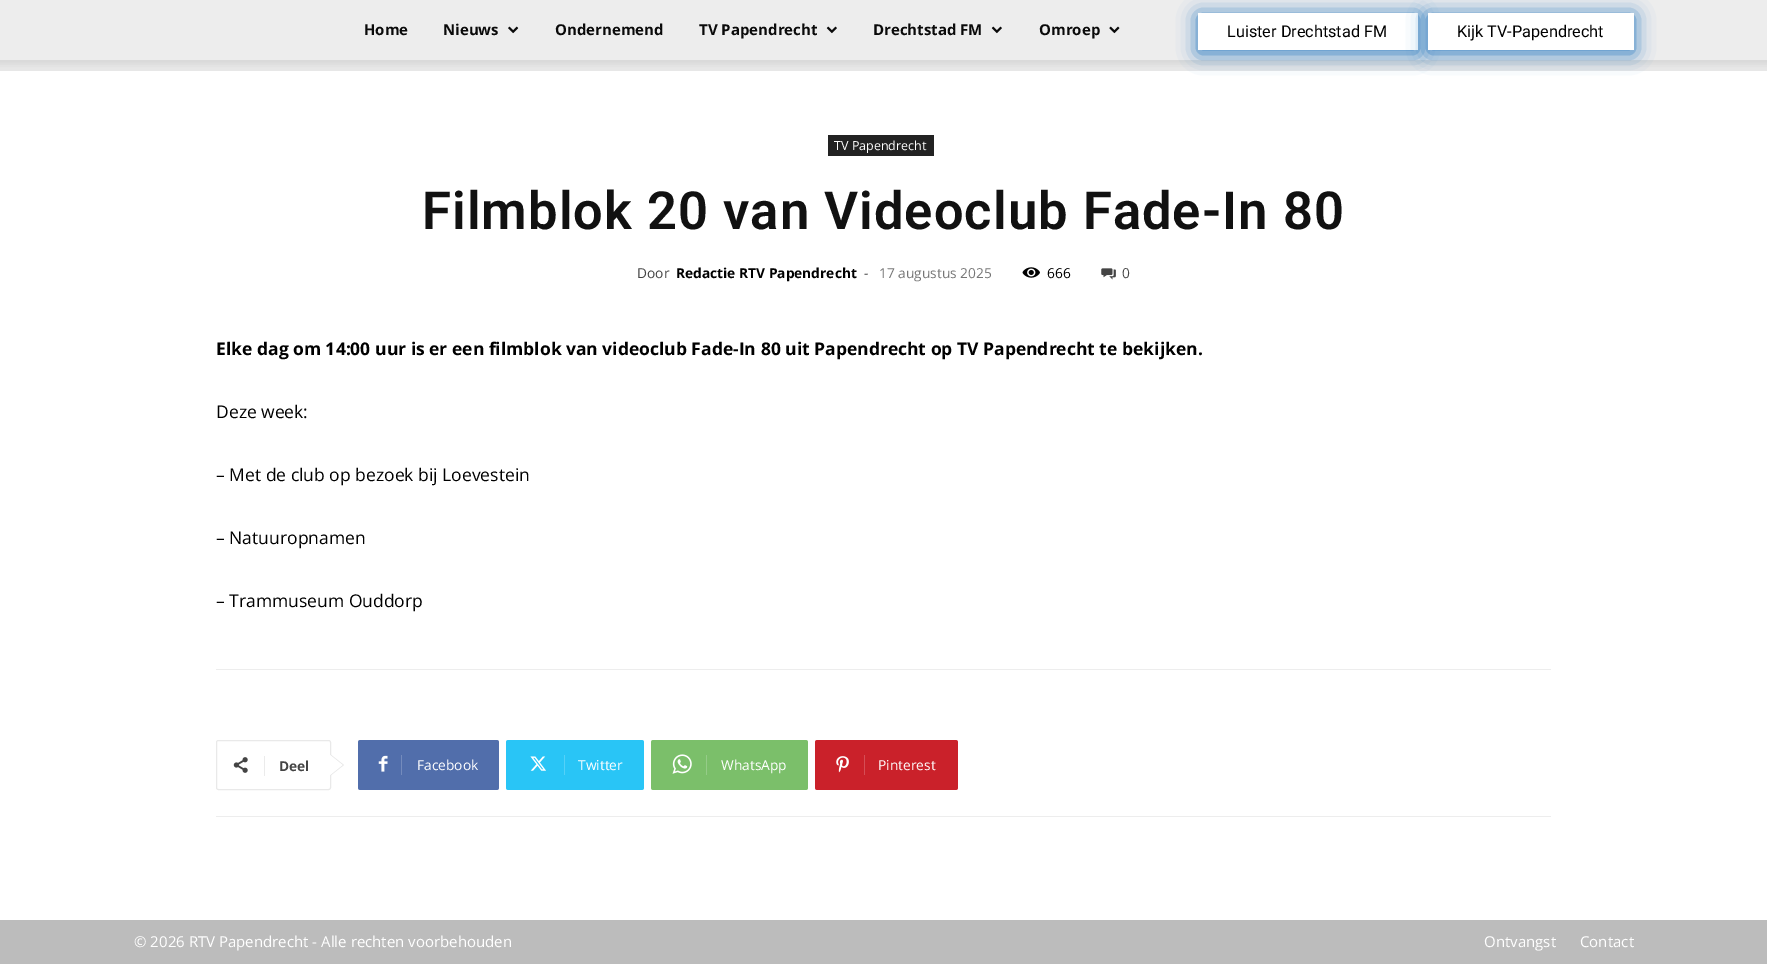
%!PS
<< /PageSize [1767 964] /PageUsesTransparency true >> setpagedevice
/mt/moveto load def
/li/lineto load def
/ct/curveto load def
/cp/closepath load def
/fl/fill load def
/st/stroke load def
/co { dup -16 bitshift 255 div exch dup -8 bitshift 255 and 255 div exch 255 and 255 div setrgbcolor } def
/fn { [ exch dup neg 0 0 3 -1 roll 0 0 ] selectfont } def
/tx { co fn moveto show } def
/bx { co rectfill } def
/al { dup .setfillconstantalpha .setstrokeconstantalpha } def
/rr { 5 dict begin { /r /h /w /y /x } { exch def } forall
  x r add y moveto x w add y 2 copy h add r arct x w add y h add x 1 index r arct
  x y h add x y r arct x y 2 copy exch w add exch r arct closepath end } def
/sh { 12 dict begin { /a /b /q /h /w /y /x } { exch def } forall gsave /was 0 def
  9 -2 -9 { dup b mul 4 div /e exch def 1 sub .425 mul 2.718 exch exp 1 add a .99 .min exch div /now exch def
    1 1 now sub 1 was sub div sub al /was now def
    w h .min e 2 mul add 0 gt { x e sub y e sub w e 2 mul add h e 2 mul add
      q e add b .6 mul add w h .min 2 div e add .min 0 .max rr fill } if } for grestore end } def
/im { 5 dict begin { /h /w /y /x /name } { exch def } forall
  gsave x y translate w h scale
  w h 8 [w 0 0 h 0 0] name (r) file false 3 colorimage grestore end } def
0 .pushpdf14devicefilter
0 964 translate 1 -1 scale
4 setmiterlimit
0 0 1767 964 16#FFFFFF bx
0 0 1767 71 16#EDEDED bx
(media/1.raw) 508 26 11 8 im
(media/2.raw) 826 26 11 8 im
(media/2.raw) 991 26 11 8 im
(media/3.raw) 1109 26 11 8 im
(media/4.raw) 0 60 1767 11 im
16#1E73BE co
1198 15 220 38 0 10 1 sh
1198 13 220 37 16#FFFFFF bx
16#1E73BE co
1428 15 206 38 0 10 1 sh
1428 13 206 37 16#FFFFFF bx
828 135 106 21 16#222222 bx
(media/5.raw) 1022 267 18 11 im
(media/6.raw) 1101 268 15 12 im
216 669 1335 1 16#EDEDED bx
216 816 1335 1 16#EDEDED bx
16#E9E9E9 co
216.5 740.5 114 49 2 rr st
330 776 mt 330 754 li 344 765 li cp fl
(media/7.raw) 233 757 15 16 im
264 756 1 20 16#EBEBEB bx
16#FFFFFF co
330 775 mt 330 755 li 342.5 765 li cp fl
16#516EAB co
401 740 mt 496.5 740 li 498 740 499 741 499 742.5 ct 499 787.5 li 499 789 498 790 496.5 790 ct 401 790 li cp fl
360.5 740 mt 409 740 li 409 790 li 360.5 790 li 359 790 358 789 358 787.5 ct 358 742.5 li 358 741 359 740 360.5 740 ct cp fl
(media/8.raw) 378 755 10 17 im
401 755 1 20 16#748BBC bx
16#29C5F6 co
564 740 mt 641.5 740 li 643 740 644 741 644 742.5 ct 644 787.5 li 644 789 643 790 641.5 790 ct 564 790 li cp fl
508.5 740 mt 571 740 li 571 790 li 508.5 790 li 507 790 506 789 506 787.5 ct 506 742.5 li 506 741 507 740 508.5 740 ct cp fl
(media/9.raw) 530 756 16 15 im
564 755 1 20 16#54D1F8 bx
16#7BBF6A co
706 740 mt 805.5 740 li 807 740 808 741 808 742.5 ct 808 787.5 li 808 789 807 790 805.5 790 ct 706 790 li cp fl
653.5 740 mt 714 740 li 714 790 li 653.5 790 li 652 790 651 789 651 787.5 ct 651 742.5 li 651 741 652 740 653.5 740 ct cp fl
(media/10.raw) 672 754 20 20 im
706 755 1 20 16#95CC88 bx
16#CA212A co
864 740 mt 955.5 740 li 957 740 958 741 958 742.5 ct 958 787.5 li 958 789 957 790 955.5 790 ct 864 790 li cp fl
817.5 740 mt 871 740 li 871 790 li 817.5 790 li 816 790 815 789 815 787.5 ct 815 742.5 li 815 741 816 740 817.5 740 ct cp fl
(media/11.raw) 836 756 13 17 im
864 755 1 20 16#D54D55 bx
0 920 1767 44 16#BCBCBC bx
(Home) 364 35 /OpenSans-Bold 15 16#0A0A0A tx
(Nieuws) 443 35 /OpenSans-Bold 15 16#0A0A0A tx
(Ondernemend) 555 35 /OpenSans-Bold 15 16#0A0A0A tx
(TV Papendrecht) 699 35 /OpenSans-Bold 15 16#0A0A0A tx
(Drechtstad FM) 873 35 /OpenSans-Bold 15 16#0A0A0A tx
(Omroep) 1039 35 /OpenSans-Bold 15 16#0A0A0A tx
(Luister Drechtstad FM) 1227 37 /Roboto-Regular 16.25 16#000000 tx
(Kijk TV-Papendrecht) 1457 37 /Roboto-Regular 16.25 16#000000 tx
(TV Papendrecht) 834 150 /OpenSans-Regular 12.5 16#FFFFFF tx
/Roboto-SemiBold 52.5 fn
16#111111 co
422 229 mt 1.05 0 (Filmblok 20 van Videoclub Fade-In 80) ashow
(Door) 637 278 /OpenSans-Regular 13.75 16#444444 tx
(Redactie RTV Papendrecht) 676 278 /OpenSans-Bold 13.75 16#000000 tx
(-) 864 278 /OpenSans-Regular 13.75 16#444444 tx
(17 augustus 2025) 879 278 /OpenSans-Regular 13.75 16#767676 tx
(666) 1047 278 /OpenSans-Regular 13.75 16#000000 tx
(0) 1122 278 /OpenSans-Regular 13.75 16#444444 tx
(Elke dag om 14:00 uur is er een filmblok van videoclub Fade-In 80 uit Papendrecht op TV Papendrecht te bekijken.) 216 355 /OpenSans-Bold 17.5 16#000000 tx
(Deze week:) 216 418 /OpenSans-Regular 17.5 16#000000 tx
(– Met de club op bezoek bij Loevestein) 216 481 /OpenSans-Regular 17.5 16#000000 tx
(– Natuuropnamen) 216 544 /OpenSans-Regular 17.5 16#000000 tx
(– Trammuseum Ouddorp) 216 607 /OpenSans-Regular 17.5 16#000000 tx
(Deel) 279 771 /OpenSans-Bold 13.75 16#444444 tx
(Facebook) 417 770 /OpenSans-Regular 13.75 16#FFFFFF tx
(Twitter) 578 770 /OpenSans-Regular 13.75 16#FFFFFF tx
(WhatsApp) 721 770 /OpenSans-Regular 13.75 16#FFFFFF tx
(Pinterest) 878 770 /OpenSans-Regular 13.75 16#FFFFFF tx
(© 2026 RTV Papendrecht - Alle rechten voorbehouden) 134 947 /OpenSans-Regular 15 16#FFFFFF tx
(Ontvangst) 1484 947 /OpenSans-Regular 15 16#FFFFFF tx
(Contact) 1580 947 /OpenSans-Regular 15 16#FFFFFF tx
.poppdf14devicefilter showpage
